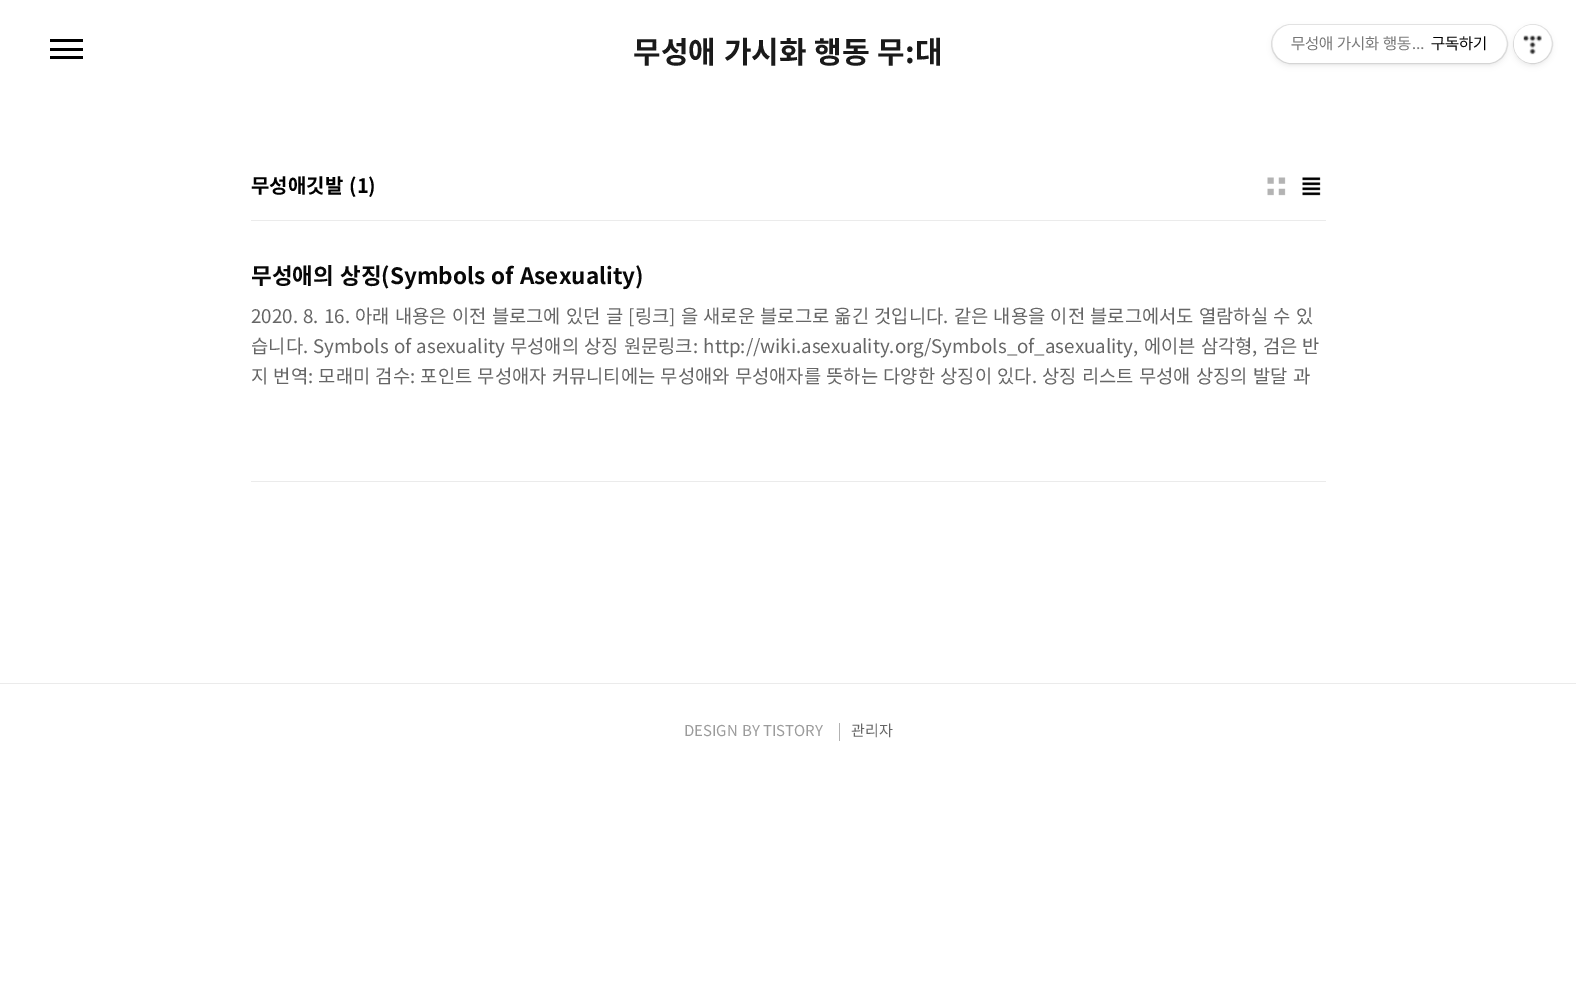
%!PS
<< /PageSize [1576 988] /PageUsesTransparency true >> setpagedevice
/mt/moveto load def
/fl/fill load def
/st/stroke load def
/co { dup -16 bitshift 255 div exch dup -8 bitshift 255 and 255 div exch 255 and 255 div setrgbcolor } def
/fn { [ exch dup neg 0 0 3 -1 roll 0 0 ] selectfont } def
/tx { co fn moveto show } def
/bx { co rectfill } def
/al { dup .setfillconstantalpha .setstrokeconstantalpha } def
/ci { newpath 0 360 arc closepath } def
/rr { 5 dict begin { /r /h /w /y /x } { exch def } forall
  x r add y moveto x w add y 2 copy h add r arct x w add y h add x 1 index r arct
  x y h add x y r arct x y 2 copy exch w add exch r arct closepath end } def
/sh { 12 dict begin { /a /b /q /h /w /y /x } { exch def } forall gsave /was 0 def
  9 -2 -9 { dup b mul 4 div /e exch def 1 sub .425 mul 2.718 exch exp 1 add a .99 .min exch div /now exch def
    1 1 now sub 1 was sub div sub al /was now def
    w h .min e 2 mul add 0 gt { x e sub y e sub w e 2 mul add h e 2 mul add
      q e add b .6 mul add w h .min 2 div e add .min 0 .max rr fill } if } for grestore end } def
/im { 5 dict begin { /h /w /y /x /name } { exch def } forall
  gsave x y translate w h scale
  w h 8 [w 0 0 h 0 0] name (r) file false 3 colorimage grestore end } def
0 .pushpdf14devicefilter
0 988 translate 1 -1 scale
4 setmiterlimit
0 0 1576 988 16#FFFFFF bx
50 39 33 3 16#000000 bx
50 48 33 3 16#000000 bx
50 56 33 3 16#000000 bx
(media/1.raw) 1516 52 23 10 im
251 220 1075 1 16#EBEBEB bx
(media/2.raw) 1267 177 19 19 im
(media/3.raw) 1302 177 19 19 im
251 481 1075 1 16#EBEBEB bx
0 683 1576 1 16#EBEBEB bx
839 723 1 18 16#B2B2B2 bx
16#000000 co
1514 28 37 37 18.5 3 .1 sh
0.1 al
1533 44 19.5 ci st
1 al
16#FFFFFF co
1514 25 37 38 18.5 rr fl
16#000000 co
1273 28 233 37 18.5 3 .1 sh
0.1 al
1271.5 24.5 236 39 19.5 rr st
1 al
16#FFFFFF co
1273 25 233 38 19 rr fl
(media/4.raw) 1523 35 19 20 im
/NotoSansKR-Bold 30 fn
16#1A1A1A co
633 63 mt 1 0 32 (무성애 가시화 행동 무:대) widthshow
(무성애깃발) 251 193 /NotoSansKR-Bold 20 16#000000 tx
(\(1\)) 349 193 /NotoSansKR-Bold 20 16#000000 tx
/NotoSansKR-Bold 22.5 fn
16#080808 co
251 284 mt 1 0 32 (무성애의 상징\(Symbols of Asexuality\)) widthshow
/NotoSansKR-Regular 18.75 fn
16#666666 co
251 323 mt 1.05 0 32 (2020. 8. 16. 아래 내용은 이전 블로그에 있던 글 [링크] 을 새로운 블로그로 옮긴 것입니다. 같은 내용을 이전 블로그에서도 열람하실 수 있) widthshow
251 353 mt 1 0 32 (습니다. Symbols of asexuality 무성애의 상징 원문링크: http://wiki.asexuality.org/Symbols_of_asexuality, 에이븐 삼각형, 검은 반) widthshow
251 383 mt 1.05 0 32 (지 번역: 모래미 검수: 포인트 무성애자 커뮤니티에는 무성애와 무성애자를 뜻하는 다양한 상징이 있다. 상징 리스트 무성애 상징의 발달 과) widthshow
/NotoSansKR-Regular 15 fn
16#9B9B9B co
684 736 mt 1 0 32 (DESIGN BY) widthshow
(TISTORY) 763 736 /NotoSansKR-Regular 15 16#9B9B9B tx
(관리자) 851 736 /NotoSansKR-Regular 15 16#666666 tx
(무성애 가시화 행동…) 1291 49 /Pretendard-Regular 16.25 16#777777 tx
(구독하기) 1431 49 /Pretendard-Regular 16.25 16#000000 tx
.poppdf14devicefilter showpage
